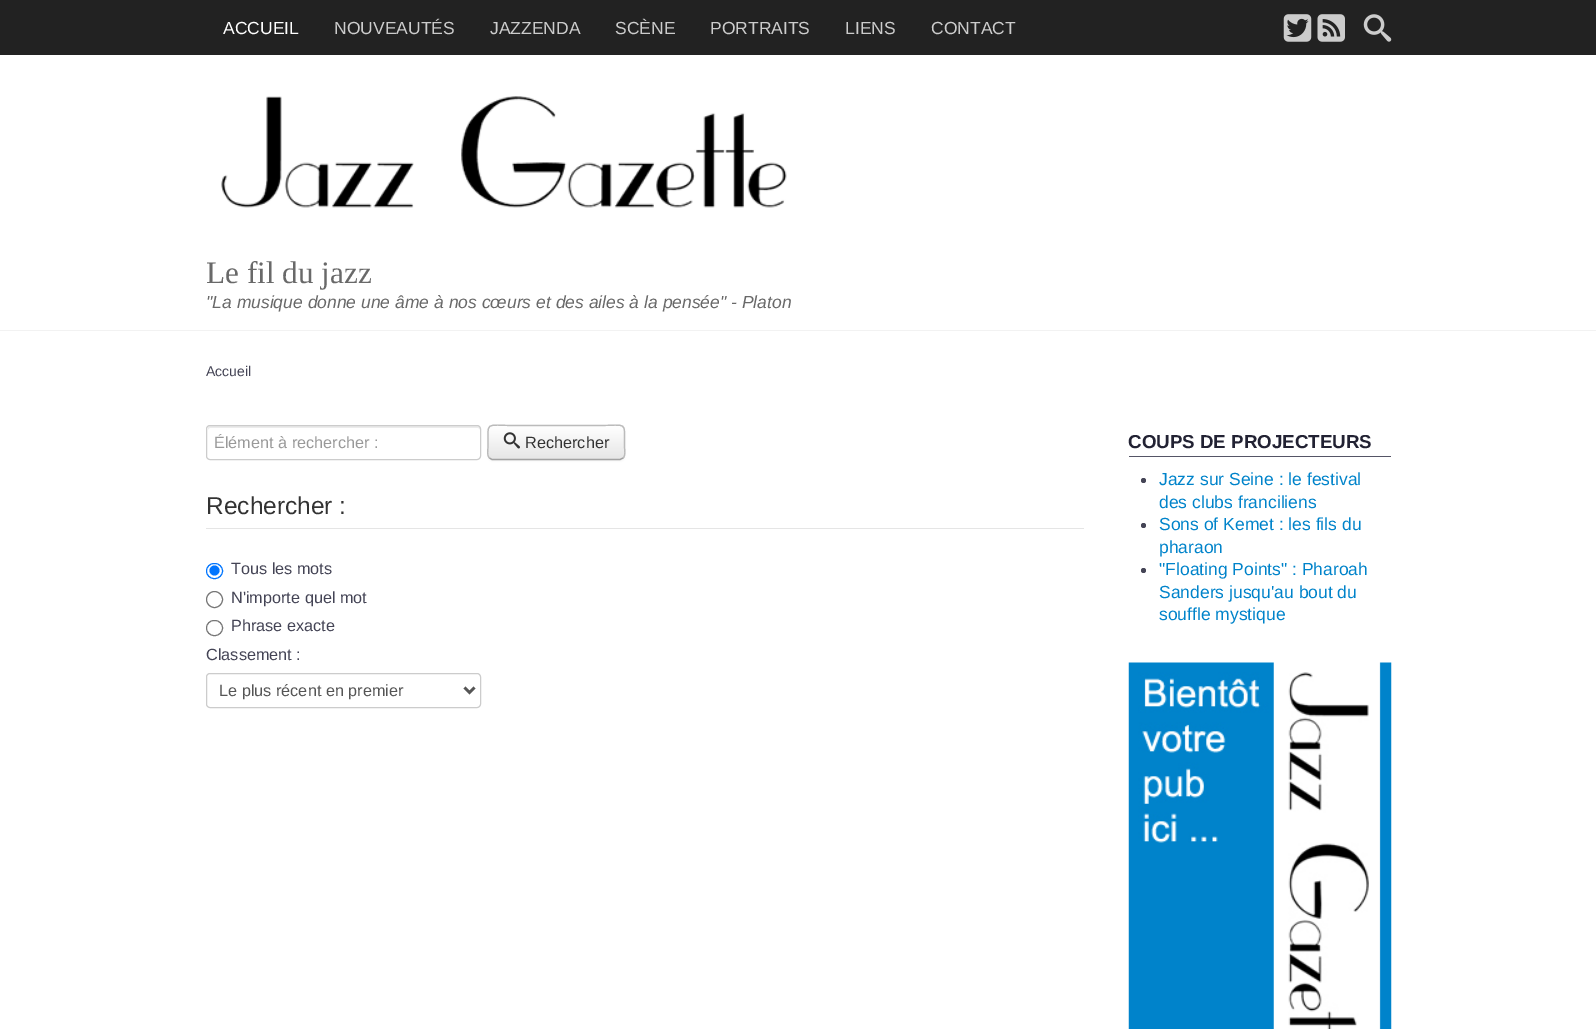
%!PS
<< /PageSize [1596 1029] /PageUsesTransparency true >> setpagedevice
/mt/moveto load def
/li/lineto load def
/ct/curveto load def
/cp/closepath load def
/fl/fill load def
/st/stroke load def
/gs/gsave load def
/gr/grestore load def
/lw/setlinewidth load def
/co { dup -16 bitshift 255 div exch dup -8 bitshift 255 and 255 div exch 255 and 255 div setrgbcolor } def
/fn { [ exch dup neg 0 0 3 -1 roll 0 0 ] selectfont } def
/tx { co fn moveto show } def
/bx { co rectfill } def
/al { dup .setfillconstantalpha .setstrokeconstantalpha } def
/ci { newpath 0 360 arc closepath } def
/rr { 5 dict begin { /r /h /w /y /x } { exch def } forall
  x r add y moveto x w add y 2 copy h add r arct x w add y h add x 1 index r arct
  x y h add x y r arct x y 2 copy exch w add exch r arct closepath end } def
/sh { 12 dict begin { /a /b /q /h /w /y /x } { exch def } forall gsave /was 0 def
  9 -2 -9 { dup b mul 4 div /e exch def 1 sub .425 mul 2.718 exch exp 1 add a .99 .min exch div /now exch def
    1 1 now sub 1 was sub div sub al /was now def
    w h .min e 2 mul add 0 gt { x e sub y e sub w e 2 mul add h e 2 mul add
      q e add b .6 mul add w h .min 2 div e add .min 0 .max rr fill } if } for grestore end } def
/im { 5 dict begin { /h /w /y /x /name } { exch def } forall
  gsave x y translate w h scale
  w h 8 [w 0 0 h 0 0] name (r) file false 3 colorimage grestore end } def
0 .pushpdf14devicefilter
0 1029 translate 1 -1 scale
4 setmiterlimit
0 0 1596 1029 16#222222 bx
(media/1.raw) 1283 14 29 28 im
(media/2.raw) 1317 14 28 28 im
(media/3.raw) 1363 14 29 28 im
0 55 1596 275 16#FFFFFF bx
(media/4.raw) 221 96 566 112 im
0 331 1596 698 16#FFFFFF bx
0 330 1596 1 16#F2F2F2 bx
16#ECECEC co
210 428 mt 478 428 li 479 428 480 429 480 430 ct 480 428 li 480 427 479 426 478 426 ct 210 426 li 209 426 208 427 208 428 ct 208 430 li 208 429 209 428 210 428 ct cp fl
16#CCCCCC co
206.5 425.5 274 34 3.5 rr st
16#000000 co
488 426 137 35 5 1 .05 sh
16#F5F5F5 co
488 425 137 35 5 rr fl
gs
488 425 137 35 5 rr clip newpath
gs 488 426 mt 625 426 li 625 459 li 488 459 li cp clip newpath
<< /ShadingType 2 /ColorSpace /DeviceRGB /Coords [556 426 556 459] /Extend [true true] /Function << /FunctionType 2 /Domain [0 1] /C0 [1 1 1] /C1 [.902 .902 .902] /N 1 >> >> shfill gr
gr
16#A2A2A2 co
1.2 lw
623 458 mt 620 459.5 li 492 459.5 li 489.5 458 li st
16#BBBBBB co
489.5 458 mt 486.5 455.5 488 450 488 446.5 ct 488 420.5 484.5 425.5 514 425.5 ct 599 425.5 li 628 425.5 624.5 420.5 624.5 446.5 ct 624.5 450 626 455.5 623 458 ct st
(media/5.raw) 503 432 17 17 im
206 528 878 1 16#E5E5E5 bx
16#0075FF co
1 lw
206.5 563.5 16 15 7.5 rr st
214.5 570.5 5 ci fl
16#767676 co
214.5 599.5 8 ci st
206.5 620.5 16 15 7.5 rr st
16#CCCCCC co
206.5 673.5 274 34 3.5 rr st
16#555555 co
2.5 lw
464.5 687.5 mt 469.5 692.5 li 474.5 687.5 li st
1129 456 262 1 16#555566 bx
16#444455 co
1143.5 480.5 2.5 ci fl
1143.5 525.5 2.5 ci fl
1143.5 570.5 2.5 ci fl
(media/6.raw) 1128 662 264 367 im
(ACCUEIL) 223 34 /LiberationSans-Regular 17.5 16#FFFFFF tx
(NOUVEAUTÉS) 334 34 /LiberationSans-Regular 17.5 16#CCCCCC tx
(JAZZENDA) 490 34 /LiberationSans-Regular 17.5 16#CCCCCC tx
(SCÈNE) 615 34 /LiberationSans-Regular 17.5 16#CCCCCC tx
(PORTRAITS) 710 34 /LiberationSans-Regular 17.5 16#CCCCCC tx
(LIENS) 845 34 /LiberationSans-Regular 17.5 16#CCCCCC tx
(CONTACT) 931 34 /LiberationSans-Regular 17.5 16#CCCCCC tx
(Le fil du jazz) 206 283 /LiberationSerif-Regular 31.25 16#696969 tx
("La musique donne une âme à nos cœurs et des ailes à la pensée" - Platon) 206 308 /LiberationSans-Italic 17.5 16#696969 tx
(Accueil) 206 376 /LiberationSans-Regular 14 16#444455 tx
(Élément à rechercher :) 214 448 /LiberationSans-Regular 16.25 16#999999 tx
(Rechercher) 525 448 /LiberationSans-Regular 16.25 16#333333 tx
(Rechercher :) 206 514 /LiberationSans-Regular 24.5 16#333333 tx
(Tous les mots) 231 574 /LiberationSans-Regular 16.25 16#444455 tx
(N'importe quel mot) 231 603 /LiberationSans-Regular 16.25 16#444455 tx
(Phrase exacte) 231 631 /LiberationSans-Regular 16.25 16#444455 tx
(Classement :) 206 660 /LiberationSans-Regular 16.25 16#444455 tx
(Le plus récent en premier) 219 696 /LiberationSans-Regular 16.25 16#555555 tx
(COUPS DE PROJECTEURS) 1128 448 /LiberationSans-Bold 18.75 16#222233 tx
(Jazz sur Seine : le festival) 1159 485 /LiberationSans-Regular 17.5 16#0083CA tx
(des clubs franciliens) 1159 508 /LiberationSans-Regular 17.5 16#0083CA tx
(Sons of Kemet : les fils du) 1159 530 /LiberationSans-Regular 17.5 16#0083CA tx
(pharaon) 1159 553 /LiberationSans-Regular 17.5 16#0083CA tx
("Floating Points" : Pharoah) 1159 575 /LiberationSans-Regular 17.5 16#0083CA tx
(Sanders jusqu'au bout du) 1159 598 /LiberationSans-Regular 17.5 16#0083CA tx
(souffle mystique) 1159 620 /LiberationSans-Regular 17.5 16#0083CA tx
.poppdf14devicefilter showpage
